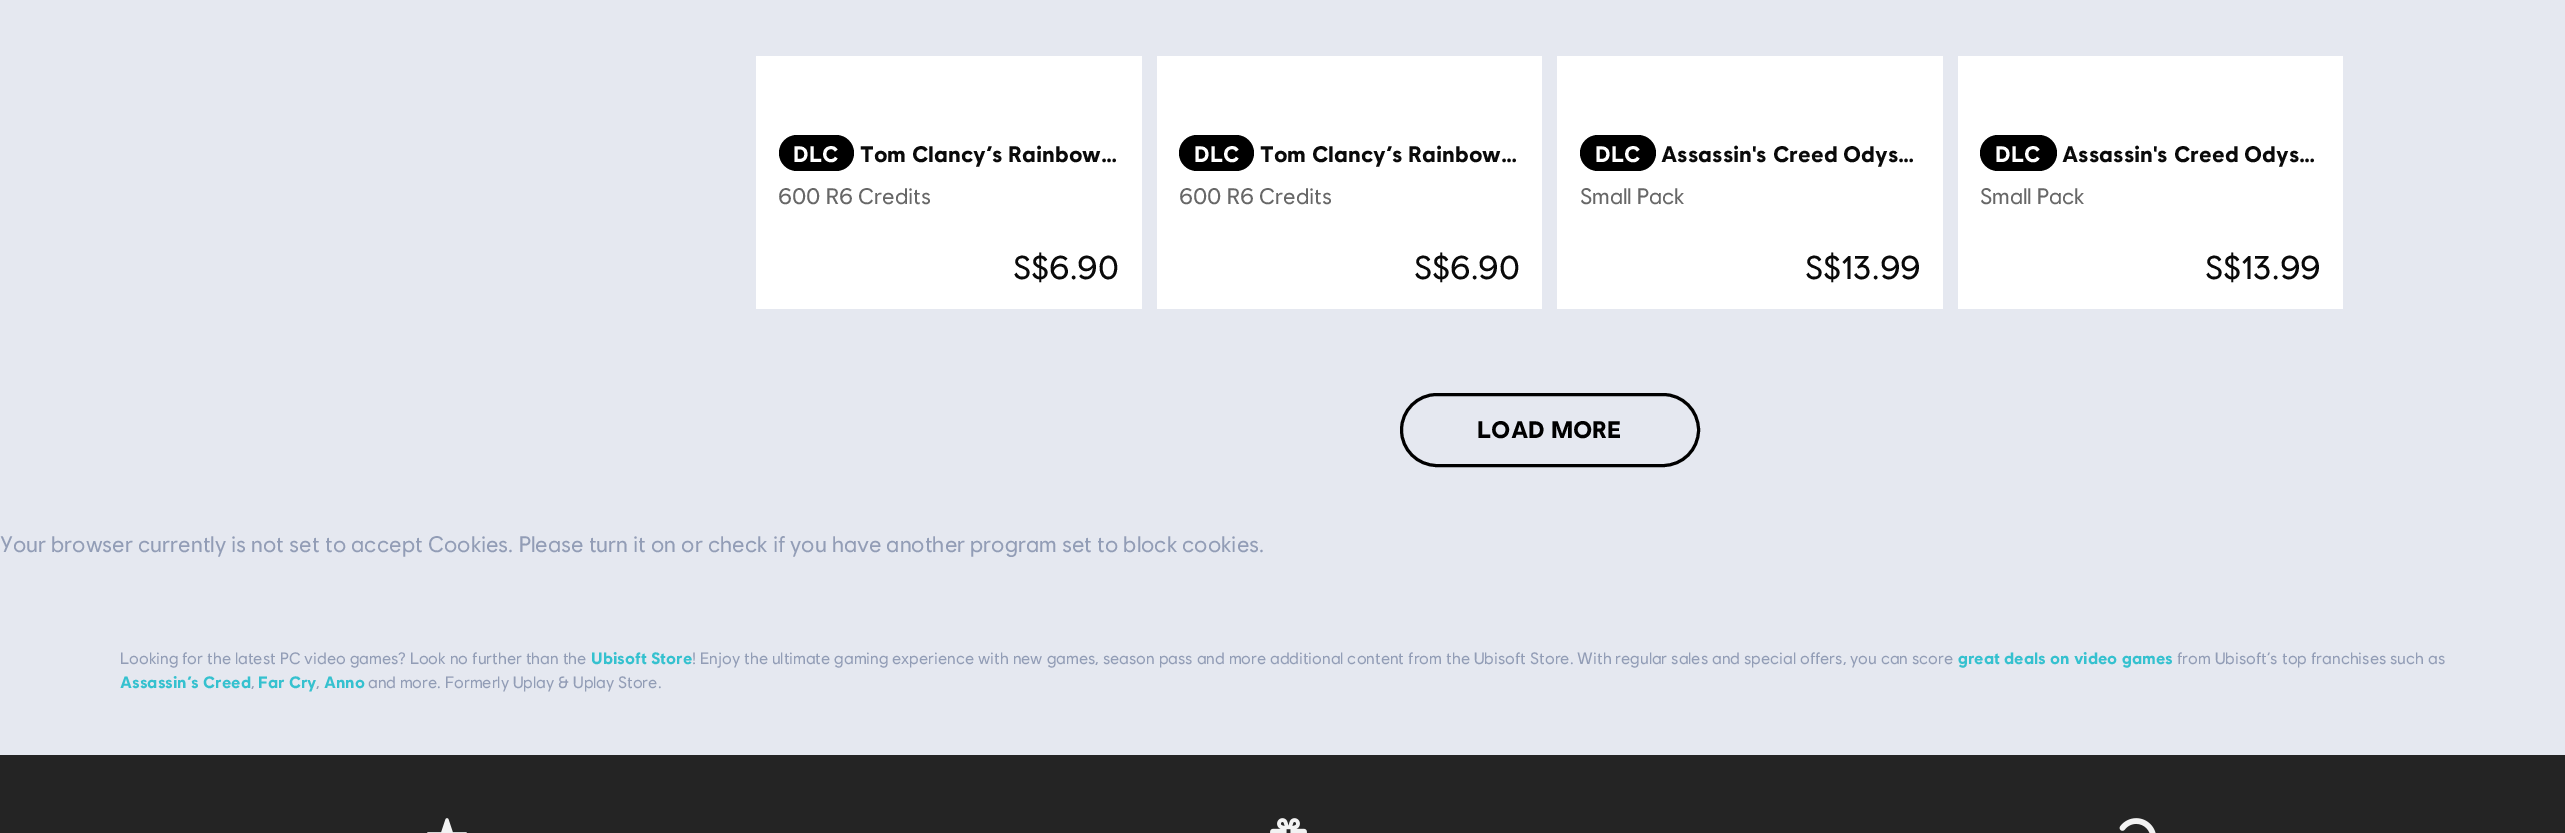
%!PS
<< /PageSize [2565 833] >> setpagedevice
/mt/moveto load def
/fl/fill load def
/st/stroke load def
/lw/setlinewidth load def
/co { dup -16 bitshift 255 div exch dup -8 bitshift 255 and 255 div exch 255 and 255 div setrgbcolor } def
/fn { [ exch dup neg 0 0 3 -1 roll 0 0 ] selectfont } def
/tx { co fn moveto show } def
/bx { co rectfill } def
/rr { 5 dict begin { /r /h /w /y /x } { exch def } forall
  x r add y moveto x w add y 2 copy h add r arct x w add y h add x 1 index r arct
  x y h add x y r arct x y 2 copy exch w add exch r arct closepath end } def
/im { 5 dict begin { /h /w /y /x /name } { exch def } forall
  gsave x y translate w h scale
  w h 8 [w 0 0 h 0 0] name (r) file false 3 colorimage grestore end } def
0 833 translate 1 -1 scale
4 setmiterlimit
0 0 2565 833 16#E5E8F0 bx
756 56 386 253 16#FFFFFF bx
16#000000 co
779 135 75 36 18 rr fl
1157 56 385 253 16#FFFFFF bx
16#000000 co
1179 135 75 36 18 rr fl
1557 56 386 253 16#FFFFFF bx
16#000000 co
1580 135 76 36 18 rr fl
1958 56 385 253 16#FFFFFF bx
16#000000 co
1980 135 77 36 18 rr fl
3 lw
1401.5 394.5 297 71 35.5 rr st
0 755 2565 78 16#242424 bx
(media/1.raw) 427 818 40 15 im
(media/2.raw) 1270 818 37 15 im
(media/3.raw) 2119 818 37 15 im
(DLC) 793 162 /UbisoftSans-Bold 22.5 16#FFFFFF tx
(Tom Clancy’s Rainbow…) 860 162 /UbisoftSans-Bold 22.5 16#0A0A0A tx
(600 R6 Credits) 778 204 /UbisoftSans-Regular 22.5 16#676767 tx
(S$6.90) 1013 279 /UbisoftSans-Regular 33 16#0A0A0A tx
(DLC) 1194 162 /UbisoftSans-Bold 22.5 16#FFFFFF tx
(Tom Clancy’s Rainbow…) 1260 162 /UbisoftSans-Bold 22.5 16#0A0A0A tx
(600 R6 Credits) 1179 204 /UbisoftSans-Regular 22.5 16#676767 tx
(S$6.90) 1414 279 /UbisoftSans-Regular 33 16#0A0A0A tx
(DLC) 1595 162 /UbisoftSans-Bold 22.5 16#FFFFFF tx
(Assassin's Creed Odys…) 1661 162 /UbisoftSans-Bold 22.5 16#0A0A0A tx
(Small Pack) 1580 204 /UbisoftSans-Regular 22.5 16#676767 tx
(S$13.99) 1805 279 /UbisoftSans-Regular 33 16#0A0A0A tx
(DLC) 1995 162 /UbisoftSans-Bold 22.5 16#FFFFFF tx
(Assassin's Creed Odys…) 2062 162 /UbisoftSans-Bold 22.5 16#0A0A0A tx
(Small Pack) 1980 204 /UbisoftSans-Regular 22.5 16#676767 tx
(S$13.99) 2205 279 /UbisoftSans-Regular 33 16#0A0A0A tx
(LOAD MORE) 1477 438 /UbisoftSans-Bold 24 16#000000 tx
(Your browser currently is not set to accept Cookies. Please turn it on or check if you have another program set to block cookies.) 0 552 /UbisoftSans-Regular 22.5 16#929DB6 tx
/UbisoftSans-Regular 16.5 fn
120 664 mt .25 0 32 (Looking for the latest PC video games? Look no further than the) widthshow
(Ubisoft Store) 591 664 /UbisoftSans-Bold 16.5 16#35C1CF tx
/UbisoftSans-Regular 16.5 fn
16#929DB6 co
692 664 mt .25 0 32 (! Enjoy the ultimate gaming experience with new games, season pass and more additional content from the Ubisoft Store. With regular sales and special offers, you can score) widthshow
/UbisoftSans-Bold 16.5 fn
16#35C1CF co
1958 664 mt .25 0 32 (great deals on video games) widthshow
/UbisoftSans-Regular 16.5 fn
16#929DB6 co
2177 664 mt .25 0 32 (from Ubisoft’s top franchises such as) widthshow
(Assassin’s Creed) 120 688 /UbisoftSans-Bold 16.5 16#35C1CF tx
(,) 251 688 /UbisoftSans-Regular 16.5 16#929DB6 tx
(Far Cry) 258 688 /UbisoftSans-Bold 16.5 16#35C1CF tx
(,) 316 688 /UbisoftSans-Regular 16.5 16#929DB6 tx
(Anno) 324 688 /UbisoftSans-Bold 16.5 16#35C1CF tx
(and more. Formerly Uplay & Uplay Store.) 368 688 /UbisoftSans-Regular 16.5 16#929DB6 tx
showpage
